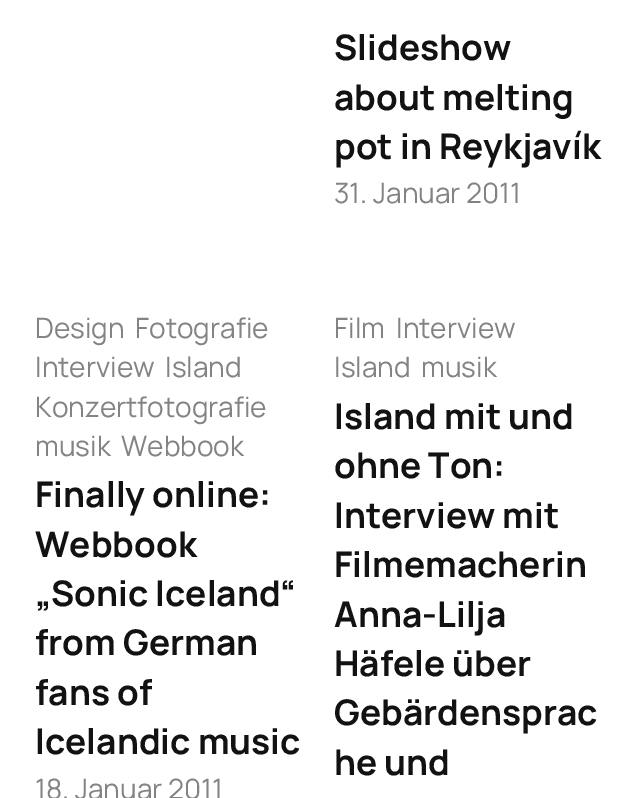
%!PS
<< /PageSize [640 798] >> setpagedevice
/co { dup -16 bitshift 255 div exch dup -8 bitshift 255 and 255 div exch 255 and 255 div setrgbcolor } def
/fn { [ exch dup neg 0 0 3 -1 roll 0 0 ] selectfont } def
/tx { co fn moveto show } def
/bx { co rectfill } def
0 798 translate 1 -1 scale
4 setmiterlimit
0 0 640 798 16#FFFFFF bx
(Slideshow) 334 60 /Manrope-Bold 35.25 16#121212 tx
(about melting) 334 110 /Manrope-Bold 35.25 16#121212 tx
(pot in Reykjavík) 334 159 /Manrope-Bold 35.25 16#121212 tx
(31. Januar 2011) 334 203 /Manrope-Regular 28 16#838383 tx
(Design) 35 338 /Manrope-Regular 28 16#838383 tx
(Fotografie) 135 338 /Manrope-Regular 28 16#838383 tx
(Interview) 35 377 /Manrope-Regular 28 16#838383 tx
(Island) 165 377 /Manrope-Regular 28 16#838383 tx
(Konzertfotografie) 35 417 /Manrope-Regular 28 16#838383 tx
(musik) 35 456 /Manrope-Regular 28 16#838383 tx
(Webbook) 121 456 /Manrope-Regular 28 16#838383 tx
(Finally online:) 35 507 /Manrope-Bold 35.25 16#121212 tx
(Webbook) 35 557 /Manrope-Bold 35.25 16#121212 tx
(„Sonic Iceland“) 35 606 /Manrope-Bold 35.25 16#121212 tx
(from German) 35 655 /Manrope-Bold 35.25 16#121212 tx
(fans of) 35 705 /Manrope-Bold 35.25 16#121212 tx
(Icelandic music) 35 754 /Manrope-Bold 35.25 16#121212 tx
(18. Januar 2011) 35 799 /Manrope-Regular 28 16#838383 tx
(Film) 334 338 /Manrope-Regular 28 16#838383 tx
(Interview) 396 338 /Manrope-Regular 28 16#838383 tx
(Island) 334 377 /Manrope-Regular 28 16#838383 tx
(musik) 421 377 /Manrope-Regular 28 16#838383 tx
(Island mit und) 334 429 /Manrope-Bold 35.25 16#121212 tx
(ohne Ton:) 334 478 /Manrope-Bold 35.25 16#121212 tx
(Interview mit) 334 528 /Manrope-Bold 35.25 16#121212 tx
(Filmemacherin) 334 577 /Manrope-Bold 35.25 16#121212 tx
(Anna-Lilja) 334 627 /Manrope-Bold 35.25 16#121212 tx
(Häfele über) 334 676 /Manrope-Bold 35.25 16#121212 tx
(Gebärdensprac) 334 725 /Manrope-Bold 35.25 16#121212 tx
(he und) 334 775 /Manrope-Bold 35.25 16#121212 tx
showpage
